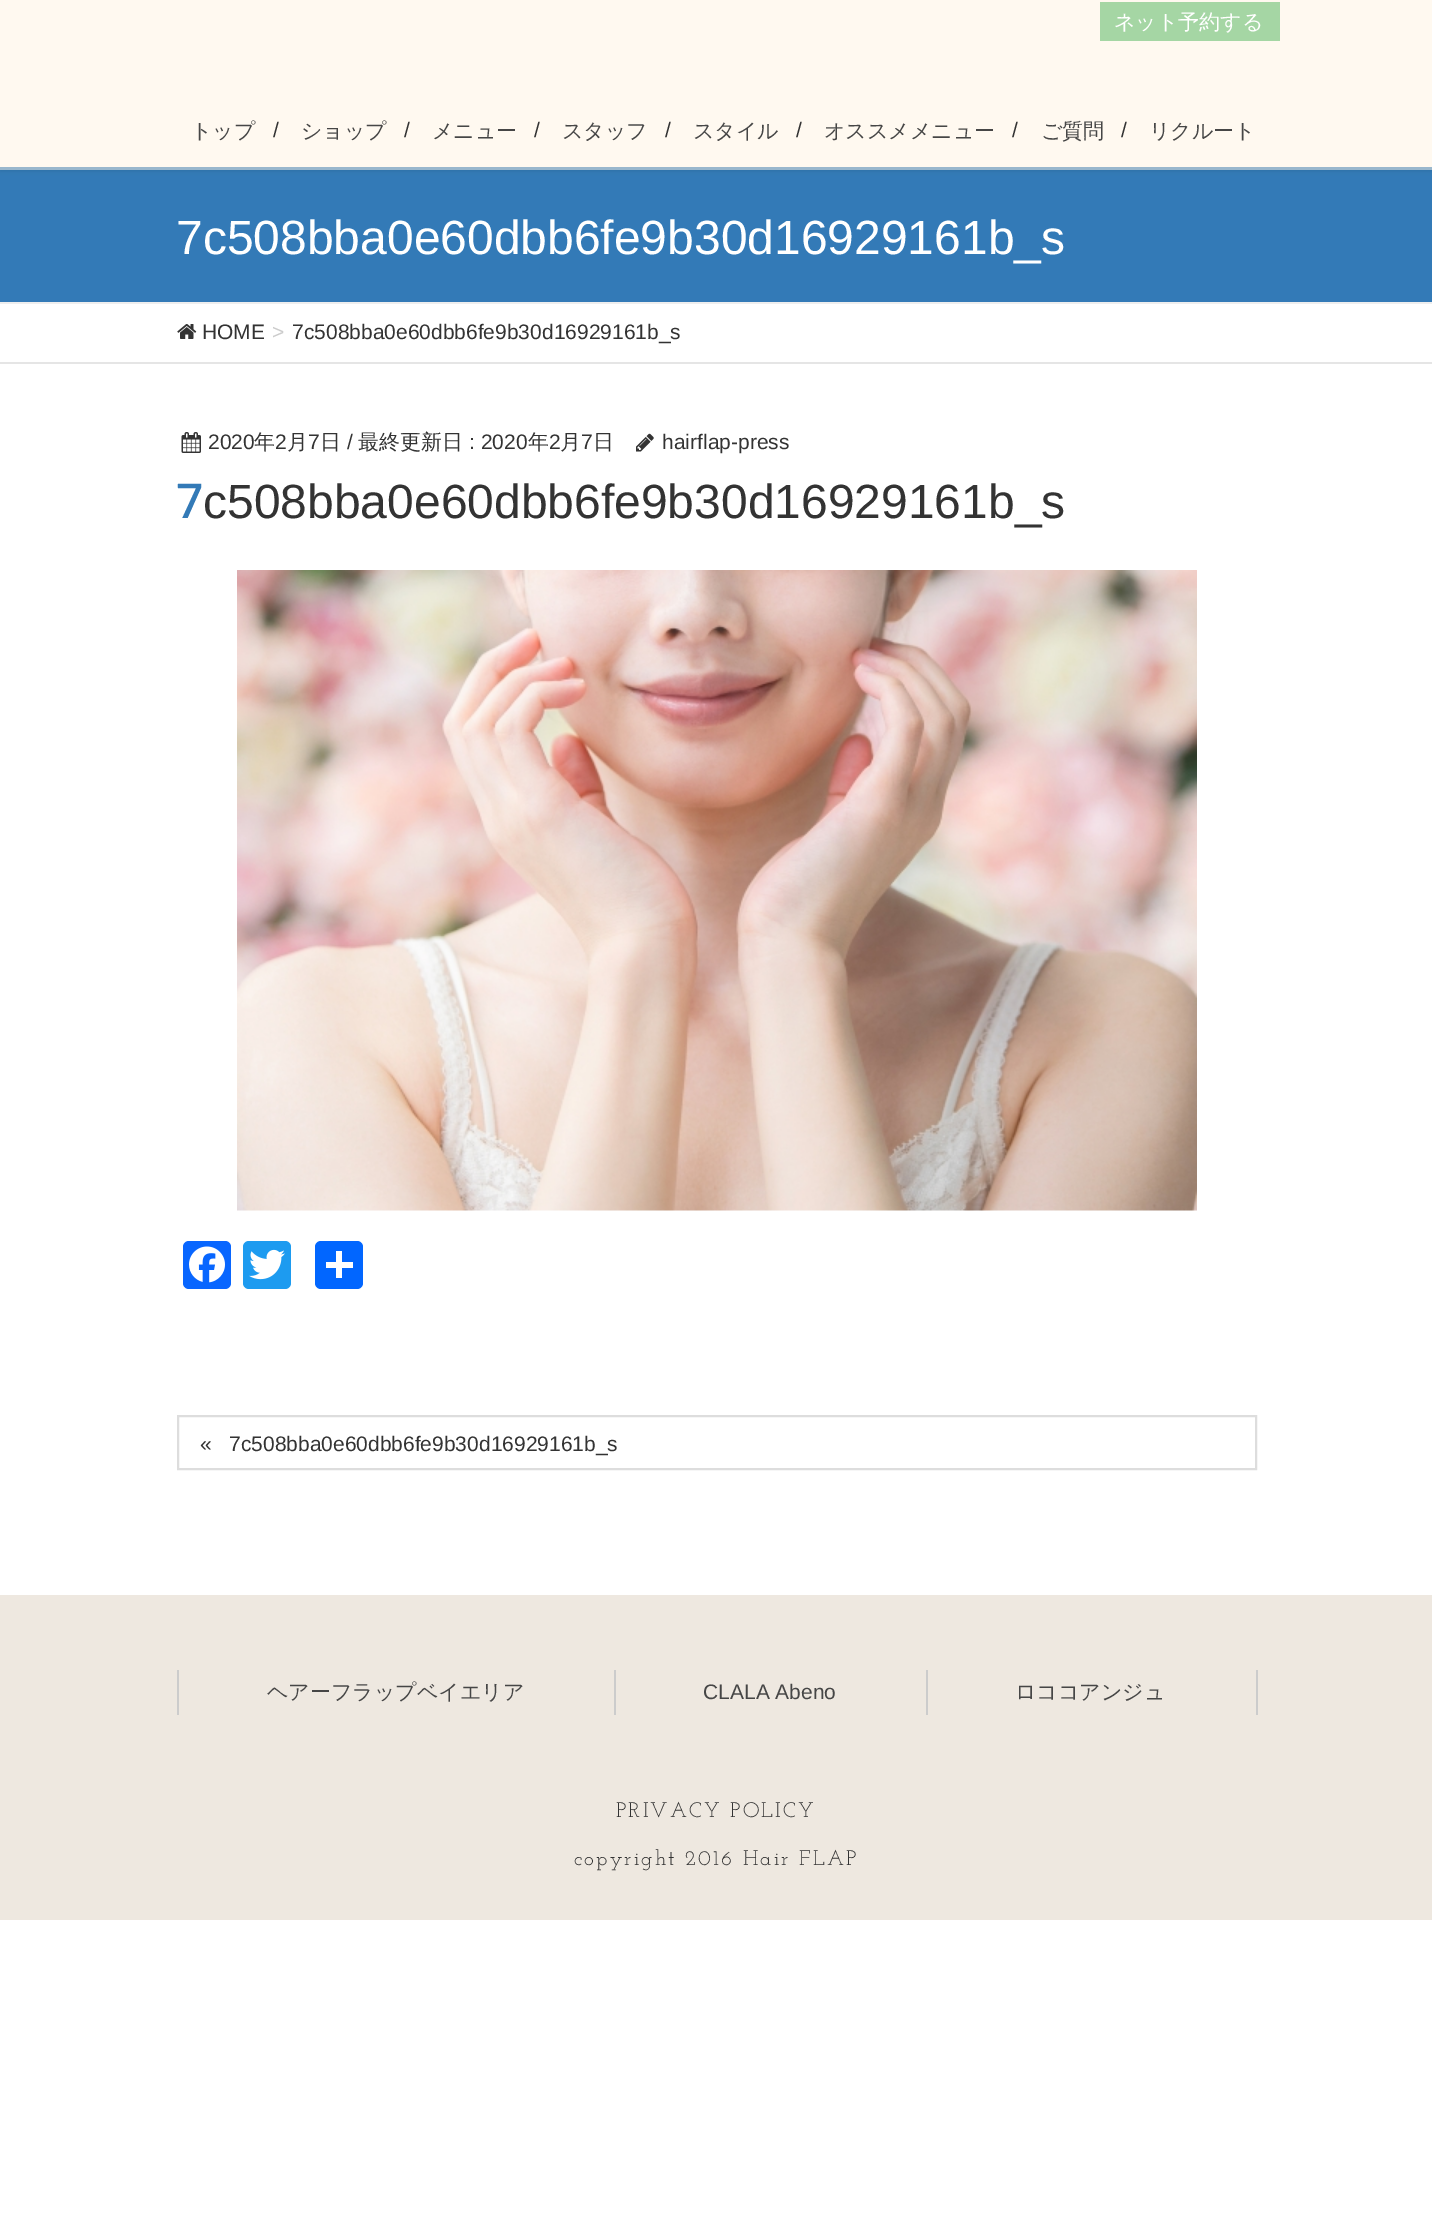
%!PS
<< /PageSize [1432 2225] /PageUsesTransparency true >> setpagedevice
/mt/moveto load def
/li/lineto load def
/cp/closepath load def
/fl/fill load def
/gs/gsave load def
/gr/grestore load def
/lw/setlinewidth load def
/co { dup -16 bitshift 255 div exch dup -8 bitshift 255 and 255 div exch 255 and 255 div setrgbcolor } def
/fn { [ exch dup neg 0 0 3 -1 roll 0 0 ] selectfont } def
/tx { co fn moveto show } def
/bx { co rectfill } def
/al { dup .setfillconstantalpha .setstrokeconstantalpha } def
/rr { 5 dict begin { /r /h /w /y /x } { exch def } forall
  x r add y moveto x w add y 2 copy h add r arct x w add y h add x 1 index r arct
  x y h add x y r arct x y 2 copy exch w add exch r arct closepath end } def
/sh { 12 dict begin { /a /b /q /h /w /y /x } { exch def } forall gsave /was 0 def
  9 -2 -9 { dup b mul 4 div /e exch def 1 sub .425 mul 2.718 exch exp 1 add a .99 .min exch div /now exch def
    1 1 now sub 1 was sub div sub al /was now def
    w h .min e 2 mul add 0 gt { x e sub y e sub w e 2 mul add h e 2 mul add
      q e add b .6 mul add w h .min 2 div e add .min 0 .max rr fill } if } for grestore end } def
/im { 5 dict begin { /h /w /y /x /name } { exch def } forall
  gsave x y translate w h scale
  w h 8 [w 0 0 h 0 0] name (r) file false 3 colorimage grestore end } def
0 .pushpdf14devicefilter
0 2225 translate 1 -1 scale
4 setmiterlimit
0 0 1432 2225 16#FFFFFF bx
0 167 1432 135 16#337AB7 bx
gs
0 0 mt 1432 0 li 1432 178 li 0 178 li cp 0 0 mt 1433 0 li 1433 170 li 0 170 li cp eoclip newpath
16#000000 co
0 2 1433 169 0 2 .1 sh
gr
0.5 al
0 0 1432 170 16#FFF3E2 bx
1 al
1100 2 180 39 16#A5D6A4 bx
0 302 1432 2 16#EEEEEE bx
0 362 1432 2 16#E5E5E5 bx
(media/1.raw) 177 324 20 15 im
(media/2.raw) 181 432 20 21 im
(media/3.raw) 636 433 18 19 im
(media/4.raw) 237 570 960 641 im
16#0866FF co
183 1241 48 48 6 rr fl
(media/5.raw) 189 1246 36 37 im
16#1D9BF0 co
243 1241 48 48 6 rr fl
(media/6.raw) 249 1249 36 31 im
16#0166FF co
315 1241 48 48 6 rr fl
336 1251 6 27 16#FFFFFF bx
326 1262 27 6 16#FFFFFF bx
16#DDDDDD co
2 lw
178 1416 1078 53 rectstroke
0 1595 1432 325 16#EEE8E0 bx
177 1670 2 45 16#CCCCCC bx
614 1670 2 45 16#CCCCCC bx
1256 1670 2 45 16#CCCCCC bx
926 1670 2 45 16#CCCCCC bx
(ネット予約する) 1114 29 /WenQuanYiZenHei-Medium 21 16#FFFFFF tx
(トップ) 191 138 /WenQuanYiZenHei-Medium 21 16#464646 tx
(/) 273 137 /LiberationSans-Regular 21 16#333333 tx
(ショップ) 301 138 /WenQuanYiZenHei-Medium 21 16#464646 tx
(/) 404 137 /LiberationSans-Regular 21 16#333333 tx
(メニュー) 432 138 /WenQuanYiZenHei-Medium 21 16#464646 tx
(/) 534 137 /LiberationSans-Regular 21 16#333333 tx
(スタッフ) 562 138 /WenQuanYiZenHei-Medium 21 16#464646 tx
(/) 665 137 /LiberationSans-Regular 21 16#333333 tx
(スタイル) 693 138 /WenQuanYiZenHei-Medium 21 16#464646 tx
(/) 796 137 /LiberationSans-Regular 21 16#333333 tx
(オススメメニュー) 824 138 /WenQuanYiZenHei-Medium 21 16#464646 tx
(/) 1012 137 /LiberationSans-Regular 21 16#333333 tx
(ご質問) 1041 138 /WenQuanYiZenHei-Medium 21 16#464646 tx
(/) 1121 137 /LiberationSans-Regular 21 16#333333 tx
(リクルート) 1149 138 /WenQuanYiZenHei-Medium 21 16#464646 tx
(7c508bba0e60dbb6fe9b30d16929161b_s) 176 254 /LiberationSans-Regular 48 16#FFFFFF tx
(HOME) 202 339 /LiberationSans-Regular 21 16#333333 tx
(>) 272 339 /LiberationSans-Regular 21 16#CCCCCC tx
(7c508bba0e60dbb6fe9b30d16929161b_s) 292 339 /LiberationSans-Regular 21 16#333333 tx
(2020) 208 449 /LiberationSans-Regular 21 16#333333 tx
(年) 254 449 /WenQuanYiZenHei-Medium 21 16#333333 tx
(2) 275 449 /LiberationSans-Regular 21 16#333333 tx
(月) 287 449 /WenQuanYiZenHei-Medium 21 16#333333 tx
(7) 308 449 /LiberationSans-Regular 21 16#333333 tx
(日) 320 449 /WenQuanYiZenHei-Medium 21 16#333333 tx
(/) 347 449 /LiberationSans-Regular 21 16#333333 tx
(最終更新日) 358 449 /WenQuanYiZenHei-Medium 21 16#333333 tx
(: 2020) 469 449 /LiberationSans-Regular 21 16#333333 tx
(年) 528 449 /WenQuanYiZenHei-Medium 21 16#333333 tx
(2) 549 449 /LiberationSans-Regular 21 16#333333 tx
(月) 560 449 /WenQuanYiZenHei-Medium 21 16#333333 tx
(7) 581 449 /LiberationSans-Regular 21 16#333333 tx
(日) 593 449 /WenQuanYiZenHei-Medium 21 16#333333 tx
(hairflap-press) 662 449 /LiberationSans-Regular 21 16#333333 tx
(7) 176 518 /NotoSans-Medium 48 16#337AB7 tx
(c508bba0e60dbb6fe9b30d16929161b_s) 203 518 /LiberationSans-Regular 48 16#333333 tx
(«) 200 1451 /LiberationSans-Regular 21 16#333333 tx
(7c508bba0e60dbb6fe9b30d16929161b_s) 229 1451 /LiberationSans-Regular 21 16#333333 tx
(ヘアーフラップベイエリア) 267 1699 /WenQuanYiZenHei-Medium 21 16#464646 tx
(CLALA Abeno) 703 1699 /LiberationSans-Regular 21 16#464646 tx
(ロココアンジュ) 1015 1699 /WenQuanYiZenHei-Medium 21 16#464646 tx
/JosefinSlab-Thin 21 fn
16#333333 co
616 1817 mt 2.1 0 (PRIVACY POLICY) ashow
574 1865 mt 2.1 0 (copyright 2016 Hair FLAP) ashow
.poppdf14devicefilter showpage
